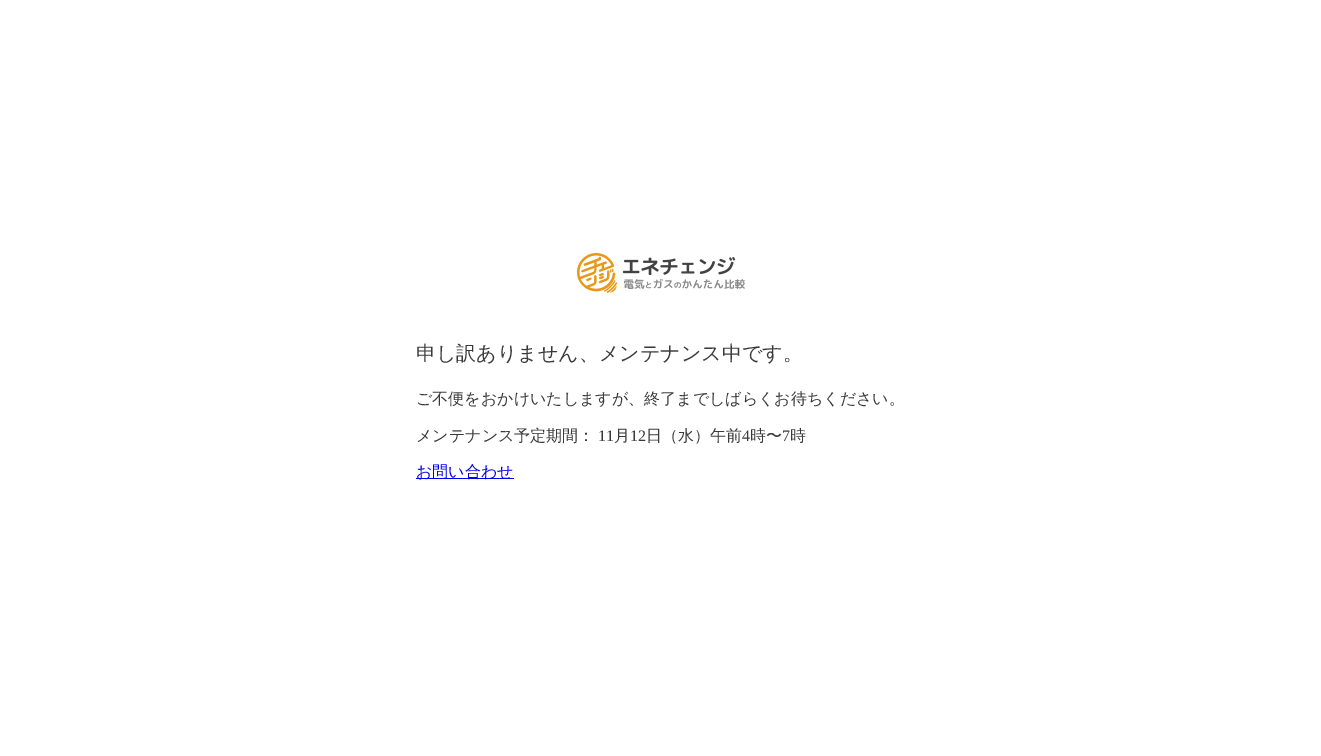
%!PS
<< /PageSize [1321 756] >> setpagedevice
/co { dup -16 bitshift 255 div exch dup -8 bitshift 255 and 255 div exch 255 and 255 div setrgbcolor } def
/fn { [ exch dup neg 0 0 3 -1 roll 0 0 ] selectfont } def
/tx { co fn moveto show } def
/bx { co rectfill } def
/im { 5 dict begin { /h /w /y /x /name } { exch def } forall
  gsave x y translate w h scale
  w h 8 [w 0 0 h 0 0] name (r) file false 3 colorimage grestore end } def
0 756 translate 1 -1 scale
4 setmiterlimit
0 0 1321 756 16#FFFFFF bx
(media/1.raw) 577 253 168 40 im
416 478 98 1 16#0000EE bx
(申し訳ありません、メンテナンス中です。) 416 360 /WenQuanYiZenHei-Medium 20 16#3A3A3A tx
(ご不便をおかけいたしますが、終了までしばらくお待ちください。) 416 404 /WenQuanYiZenHei-Medium 16 16#3A3A3A tx
(メンテナンス予定期間：) 416 441 /WenQuanYiZenHei-Medium 16 16#3A3A3A tx
(11) 598 441 /LiberationSerif-Regular 16 16#3A3A3A tx
(月) 614 441 /WenQuanYiZenHei-Medium 16 16#3A3A3A tx
(12) 630 441 /LiberationSerif-Regular 16 16#3A3A3A tx
(日（水）午前) 646 441 /WenQuanYiZenHei-Medium 16 16#3A3A3A tx
(4) 742 441 /LiberationSerif-Regular 16 16#3A3A3A tx
(時〜) 750 441 /WenQuanYiZenHei-Medium 16 16#3A3A3A tx
(7) 782 441 /LiberationSerif-Regular 16 16#3A3A3A tx
(時) 790 441 /WenQuanYiZenHei-Medium 16 16#3A3A3A tx
(お問い合わせ) 416 477 /WenQuanYiZenHei-Medium 16 16#0000EE tx
showpage
